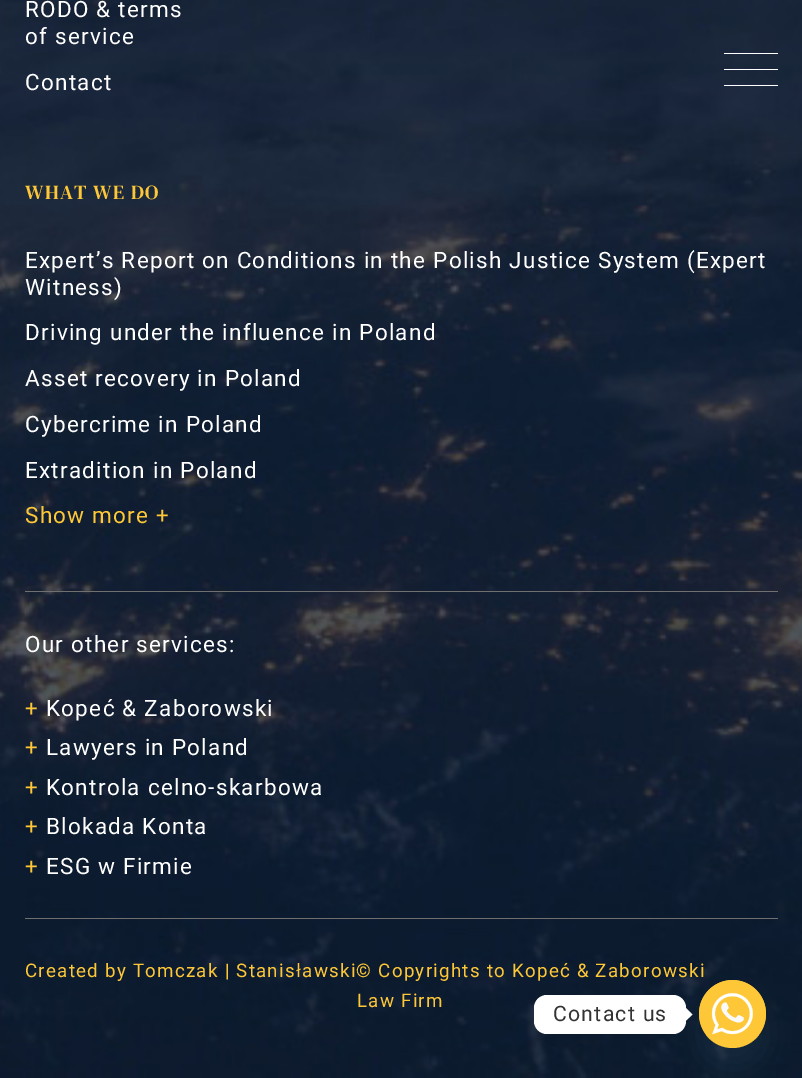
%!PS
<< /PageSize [802 1078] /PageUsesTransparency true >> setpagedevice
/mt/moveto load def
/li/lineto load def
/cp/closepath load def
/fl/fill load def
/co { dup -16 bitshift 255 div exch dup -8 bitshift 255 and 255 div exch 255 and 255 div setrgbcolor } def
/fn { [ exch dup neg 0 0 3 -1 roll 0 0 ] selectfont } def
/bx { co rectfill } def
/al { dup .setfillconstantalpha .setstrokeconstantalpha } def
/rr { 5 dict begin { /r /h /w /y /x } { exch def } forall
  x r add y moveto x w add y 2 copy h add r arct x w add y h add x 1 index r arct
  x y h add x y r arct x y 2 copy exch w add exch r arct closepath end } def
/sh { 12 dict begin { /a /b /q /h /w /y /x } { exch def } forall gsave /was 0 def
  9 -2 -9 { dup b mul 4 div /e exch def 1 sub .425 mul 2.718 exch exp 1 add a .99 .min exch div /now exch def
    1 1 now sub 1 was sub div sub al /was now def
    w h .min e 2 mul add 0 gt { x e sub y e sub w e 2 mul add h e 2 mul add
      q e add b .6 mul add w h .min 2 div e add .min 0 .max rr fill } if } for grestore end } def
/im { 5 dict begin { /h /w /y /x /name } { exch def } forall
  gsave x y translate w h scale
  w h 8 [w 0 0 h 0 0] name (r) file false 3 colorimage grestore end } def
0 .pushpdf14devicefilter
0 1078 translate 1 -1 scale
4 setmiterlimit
0 0 802 1078 16#FFFFFF bx
(media/1.raw) 0 0 802 1078 im
25 591 753 1 16#707070 bx
25 918 753 1 16#707070 bx
724 53 54 1 16#FFFFFF bx
724 69 54 1 16#FFFFFF bx
724 85 54 1 16#FFFFFF bx
16#49687E co
699 1000 67 68 33.5 15 .16 sh
16#FFFFFF co
534 995 152 39 13 rr fl
686 1020.5 mt 686 1008 li 692.5 1014.5 li cp fl
16#FDC737 co
699 980 67 68 33.5 rr fl
/Roboto-Regular 22.5 fn
16#FFFFFF co
25 17 mt 1.25 0 (RODO & terms) ashow
25 44 mt 1.25 0 (of service) ashow
25 90 mt 1.25 0 (Contact) ashow
/DMSerifText-Regular 20 fn
16#FDC737 co
25 199 mt 1.25 0 (WHAT WE DO) ashow
/Roboto-Regular 22.5 fn
16#FFFFFF co
25 268 mt 1.25 0 (Expert’s Report on Conditions in the Polish Justice System \(Expert) ashow
25 295 mt 1.25 0 (Witness\)) ashow
25 340 mt 1.25 0 (Driving under the influence in Poland) ashow
25 386 mt 1.25 0 (Asset recovery in Poland) ashow
25 432 mt 1.25 0 (Cybercrime in Poland) ashow
25 478 mt 1.25 0 (Extradition in Poland) ashow
16#FDC737 co
25 523 mt 1.25 0 (Show more +) ashow
16#FFFFFF co
25 652 mt 1.25 0 (Our other services:) ashow
16#FDC737 co
25 716 mt 1.25 0 (+) ashow
16#FFFFFF co
46 716 mt 1.25 0 (Kopeć & Zaborowski) ashow
16#FDC737 co
25 755 mt 1.25 0 (+) ashow
16#FFFFFF co
46 755 mt 1.25 0 (Lawyers in Poland) ashow
16#FDC737 co
25 795 mt 1.25 0 (+) ashow
16#FFFFFF co
46 795 mt 1.25 0 (Kontrola celno-skarbowa) ashow
16#FDC737 co
25 834 mt 1.25 0 (+) ashow
16#FFFFFF co
46 834 mt 1.25 0 (Blokada Konta) ashow
16#FDC737 co
25 874 mt 1.25 0 (+) ashow
16#FFFFFF co
46 874 mt 1.25 0 (ESG w Firmie) ashow
/Roboto-Regular 18.75 fn
16#FDC737 co
25 977 mt 1.25 0 (Created by Tomczak | Stanisławski© Copyrights to Kopeć & Zaborowski) ashow
357 1007 mt 1.25 0 (Law Firm) ashow
/Roboto-Regular 21.25 fn
16#333333 co
553 1021 mt 1.25 0 (Contact us) ashow
(media/2.raw) 699 980 67 55 im
.poppdf14devicefilter showpage
